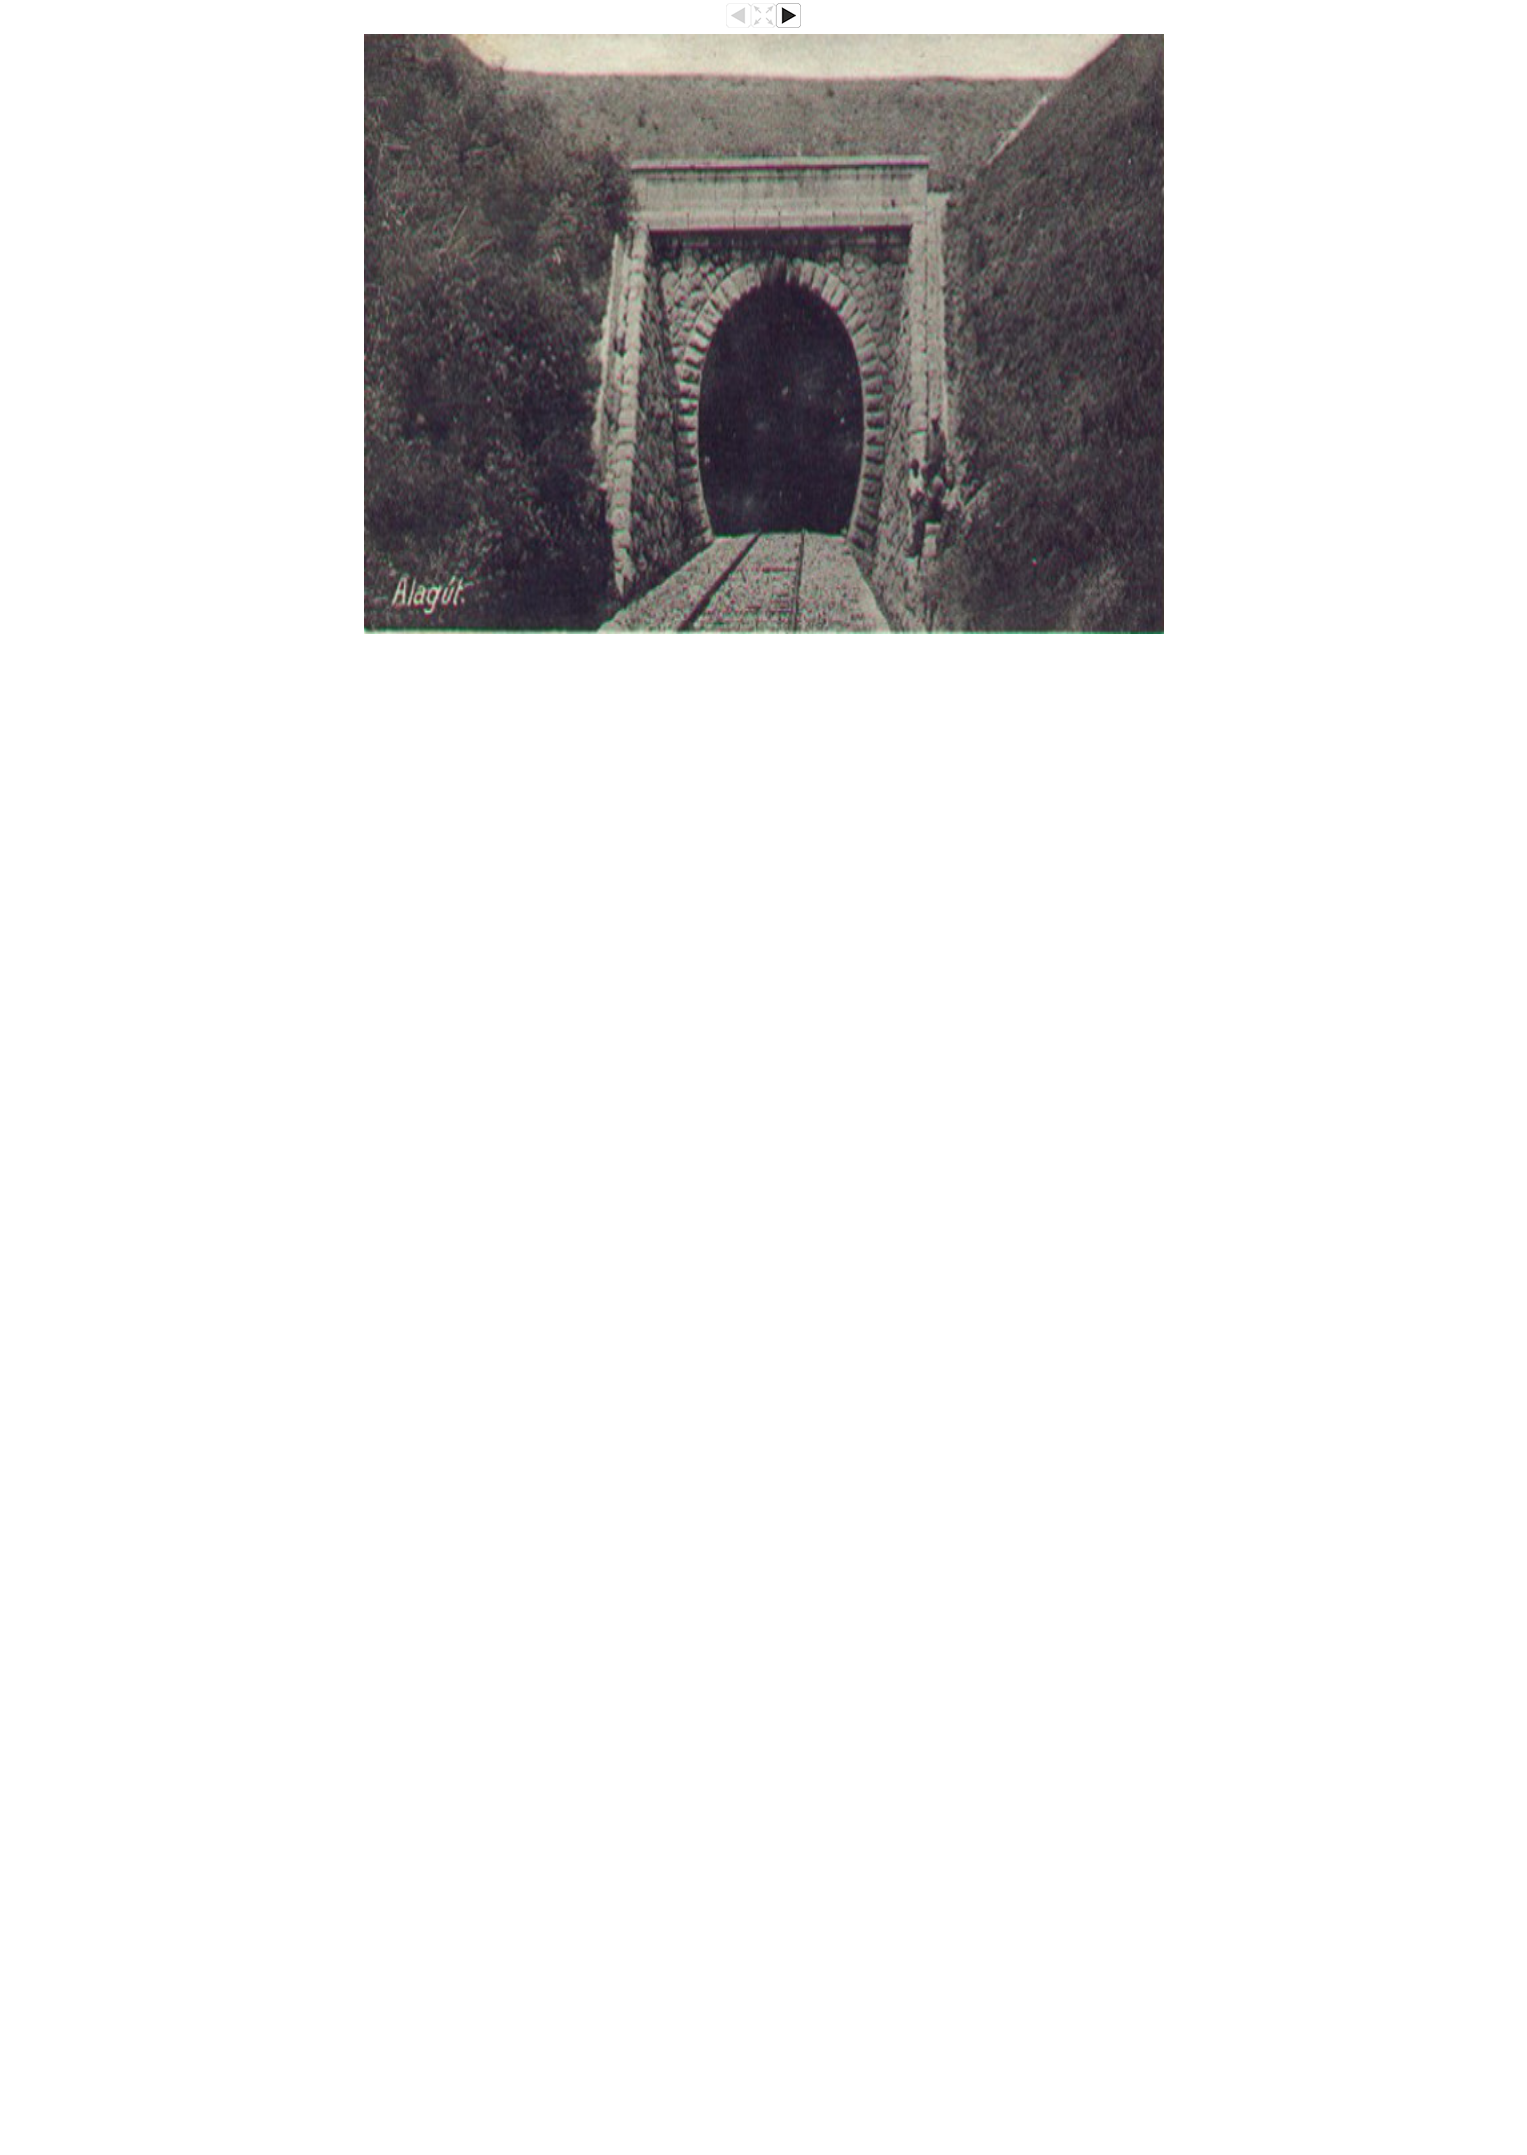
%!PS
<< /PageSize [1527 2155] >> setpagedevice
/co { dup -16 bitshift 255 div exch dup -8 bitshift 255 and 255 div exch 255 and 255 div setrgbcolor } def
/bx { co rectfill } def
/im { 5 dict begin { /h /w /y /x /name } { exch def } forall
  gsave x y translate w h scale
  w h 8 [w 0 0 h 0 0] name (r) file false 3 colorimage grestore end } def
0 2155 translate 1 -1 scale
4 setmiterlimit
0 0 1527 2155 16#FFFFFF bx
(media/1.raw) 726 3 25 25 im
(media/2.raw) 751 3 25 25 im
(media/3.raw) 776 3 25 25 im
(media/4.raw) 364 34 800 600 im
showpage
